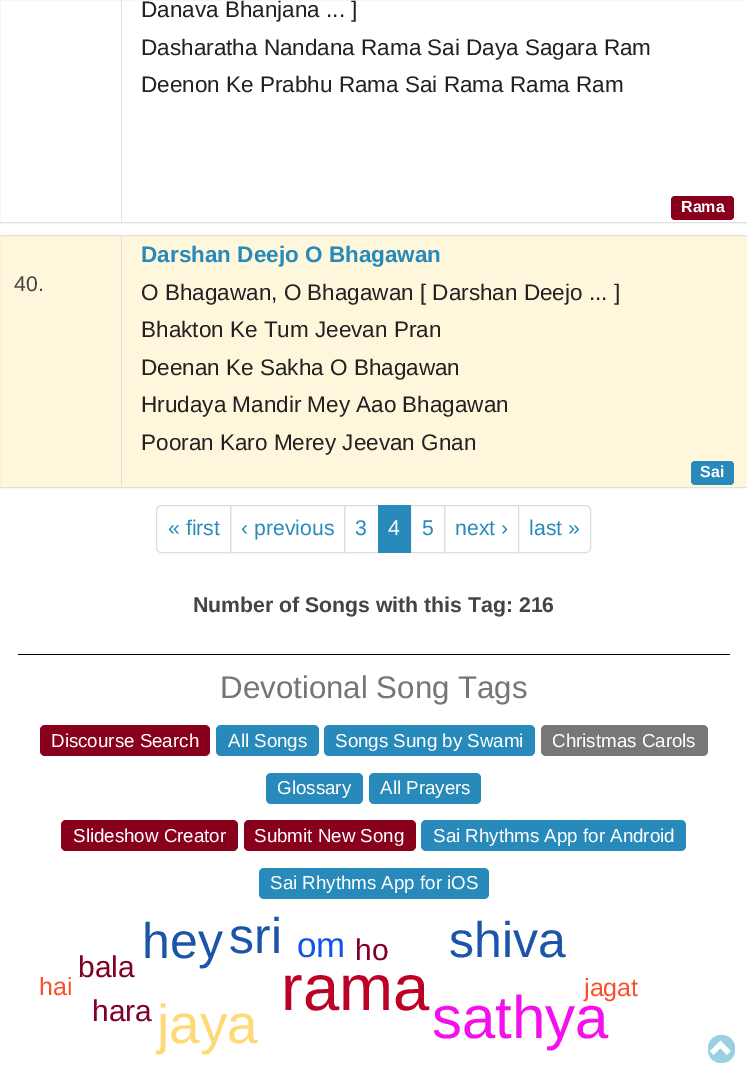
%!PS
<< /PageSize [747 1074] >> setpagedevice
/mt/moveto load def
/li/lineto load def
/ct/curveto load def
/cp/closepath load def
/fl/fill load def
/st/stroke load def
/gs/gsave load def
/gr/grestore load def
/co { dup -16 bitshift 255 div exch dup -8 bitshift 255 and 255 div exch 255 and 255 div setrgbcolor } def
/fn { [ exch dup neg 0 0 3 -1 roll 0 0 ] selectfont } def
/tx { co fn moveto show } def
/bx { co rectfill } def
/rr { 5 dict begin { /r /h /w /y /x } { exch def } forall
  x r add y moveto x w add y 2 copy h add r arct x w add y h add x 1 index r arct
  x y h add x y r arct x y 2 copy exch w add exch r arct closepath end } def
0 1074 translate 1 -1 scale
4 setmiterlimit
0 0 747 1074 16#FFFFFF bx
16#E0E0E0 co
-.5 -.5 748 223 rectstroke
121 0 1 221 16#E0E0E0 bx
16#89001D co
671 196 63 24 4 rr fl
16#FFF7DC co
-.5 235.5 mt 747.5 235.5 li 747.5 487.5 li -.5 487.5 li cp gs fl gr
16#E0E0E0 co
st
121 236 1 250 16#E0E0E0 bx
16#288ABB co
691 461 43 24 4 rr fl
16#DDDDDD co
161 505.5 mt 230.5 505.5 li 230.5 552.5 li 161 552.5 li 158.5 552.5 156.5 550.5 156.5 548 ct 156.5 510 li 156.5 507.5 158.5 505.5 161 505.5 ct cp st
230.5 505.5 114 47 rectstroke
344.5 505.5 34 47 rectstroke
410.5 505.5 34 47 rectstroke
378 505 33 48 16#288ABB bx
16#DDDDDD co
444.5 505.5 74 47 rectstroke
16#FFFFFF co
518.5 505.5 mt 586 505.5 li 588.5 505.5 590.5 507.5 590.5 510 ct 590.5 548 li 590.5 550.5 588.5 552.5 586 552.5 ct 518.5 552.5 li cp gs fl gr
16#DDDDDD co
st
18 654 712 1 16#000000 bx
16#89001D co
40 725 170 31 5 rr fl
16#288ABB co
216 725 103 31 5 rr fl
324 725 211 31 5 rr fl
16#777777 co
541 725 167 31 5 rr fl
16#288ABB co
266 773 97 31 5 rr fl
369 773 112 31 5 rr fl
16#89001D co
61 820 177 31 5 rr fl
244 820 172 31 5 rr fl
16#288ABB co
421 820 265 31 5 rr fl
259 868 230 31 5 rr fl
16#99D1E3 co
708 1035 27 28 13 rr fl
16#FFFFFF co
730.5 1051 mt 727 1055 li 720.5 1048 li 713.5 1055 li 710 1051 li 720.5 1040.5 li cp fl
(Danava Bhanjana ... ]) 141 17 /LiberationSans-Regular 22.5 16#222222 tx
(Dasharatha Nandana Rama Sai Daya Sagara Ram) 141 55 /LiberationSans-Regular 22.5 16#222222 tx
(Deenon Ke Prabhu Rama Sai Rama Rama Ram) 141 92 /LiberationSans-Regular 22.5 16#222222 tx
(Rama) 681 212 /LiberationSans-Bold 16 16#FFFFFF tx
(40.) 14 291 /LiberationSans-Regular 21.25 16#444444 tx
(Darshan Deejo O Bhagawan) 141 262 /LiberationSans-Bold 22.5 16#288ABB tx
(O Bhagawan, O Bhagawan [ Darshan Deejo ... ]) 141 300 /LiberationSans-Regular 22.5 16#222222 tx
(Bhakton Ke Tum Jeevan Pran) 141 337 /LiberationSans-Regular 22.5 16#222222 tx
(Deenan Ke Sakha O Bhagawan) 141 375 /LiberationSans-Regular 22.5 16#222222 tx
(Hrudaya Mandir Mey Aao Bhagawan) 141 412 /LiberationSans-Regular 22.5 16#222222 tx
(Pooran Karo Merey Jeevan Gnan) 141 450 /LiberationSans-Regular 22.5 16#222222 tx
(Sai) 700 477 /LiberationSans-Bold 16 16#FFFFFF tx
(« first) 168 535 /LiberationSans-Regular 21.25 16#288ABB tx
(‹ previous) 241 535 /LiberationSans-Regular 21.25 16#288ABB tx
(3) 355 535 /LiberationSans-Regular 21.25 16#288ABB tx
(4) 388 535 /LiberationSans-Regular 21.25 16#FFFFFF tx
(5) 422 535 /LiberationSans-Regular 21.25 16#288ABB tx
(next ›) 455 535 /LiberationSans-Regular 21.25 16#288ABB tx
(last ») 529 535 /LiberationSans-Regular 21.25 16#288ABB tx
(Number of Songs with this Tag: 216) 193 612 /LiberationSans-Bold 21.25 16#444444 tx
(Devotional Song Tags) 220 698 /LiberationSans-Regular 31.25 16#757575 tx
(Discourse Search) 51 747 /LiberationSans-Regular 18.75 16#FFFFFF tx
(All Songs) 228 747 /LiberationSans-Regular 18.75 16#FFFFFF tx
(Songs Sung by Swami) 335 747 /LiberationSans-Regular 18.75 16#FFFFFF tx
(Christmas Carols) 552 747 /LiberationSans-Regular 18.75 16#FFFFFF tx
(Glossary) 277 794 /LiberationSans-Regular 18.75 16#FFFFFF tx
(All Prayers) 380 794 /LiberationSans-Regular 18.75 16#FFFFFF tx
(Slideshow Creator) 73 842 /LiberationSans-Regular 18.75 16#FFFFFF tx
(Submit New Song) 254 842 /LiberationSans-Regular 18.75 16#FFFFFF tx
(Sai Rhythms App for Android) 433 842 /LiberationSans-Regular 18.75 16#FFFFFF tx
(Sai Rhythms App for iOS) 270 889 /LiberationSans-Regular 18.75 16#FFFFFF tx
(hey) 142 958 /LiberationSans-Regular 50 16#1C54A9 tx
(sri) 229 953 /LiberationSans-Regular 50 16#1C54A9 tx
(om) 297 957 /LiberationSans-Regular 35 16#0E55E4 tx
(ho) 355 960 /LiberationSans-Regular 30 16#800026 tx
(shiva) 449 957 /LiberationSans-Regular 50 16#1C54A9 tx
(bala) 78 977 /LiberationSans-Regular 30 16#800026 tx
(hai) 39 995 /LiberationSans-Regular 25 16#FC4E2A tx
(rama) 281 1010 /LiberationSans-Regular 65 16#BD0026 tx
(jagat) 584 996 /LiberationSans-Regular 25 16#FC4E2A tx
(hara) 92 1021 /LiberationSans-Regular 30 16#800026 tx
(jaya) 157 1043 /LiberationSans-Regular 55 16#FED976 tx
(sathya) 432 1038 /LiberationSans-Regular 60 16#F410ED tx
showpage
